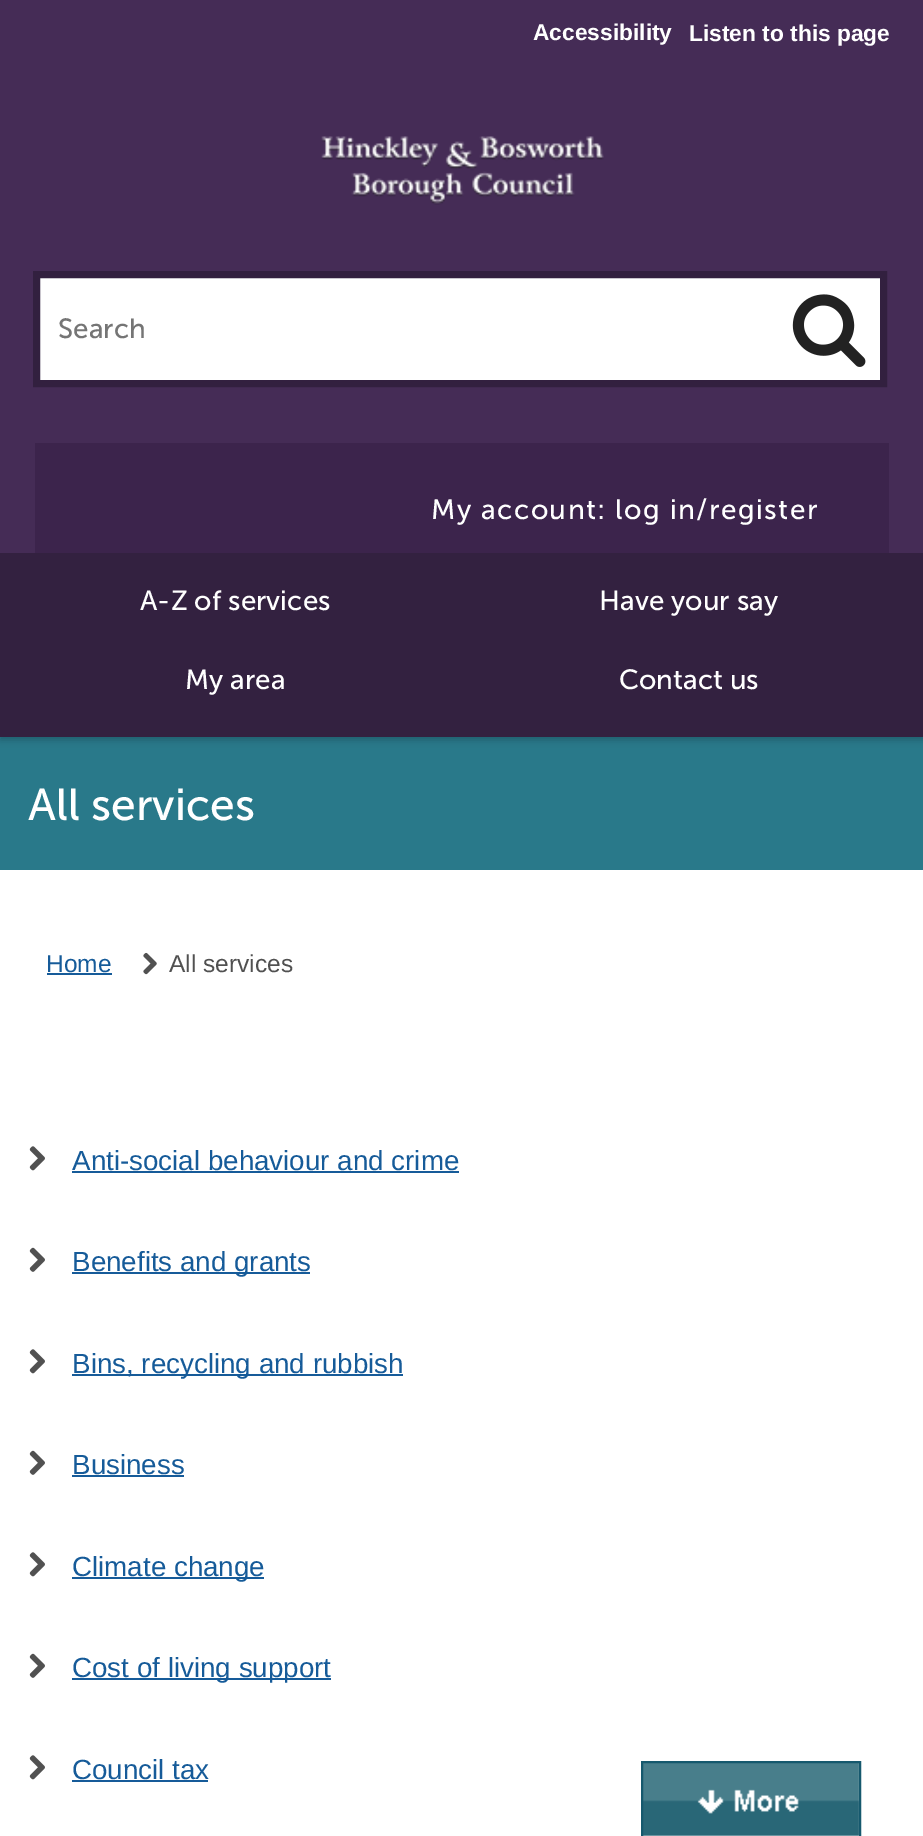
%!PS
<< /PageSize [923 1836] /PageUsesTransparency true >> setpagedevice
/mt/moveto load def
/li/lineto load def
/cp/closepath load def
/fl/fill load def
/st/stroke load def
/gs/gsave load def
/gr/grestore load def
/lw/setlinewidth load def
/co { dup -16 bitshift 255 div exch dup -8 bitshift 255 and 255 div exch 255 and 255 div setrgbcolor } def
/fn { [ exch dup neg 0 0 3 -1 roll 0 0 ] selectfont } def
/tx { co fn moveto show } def
/bx { co rectfill } def
/al { dup .setfillconstantalpha .setstrokeconstantalpha } def
/rr { 5 dict begin { /r /h /w /y /x } { exch def } forall
  x r add y moveto x w add y 2 copy h add r arct x w add y h add x 1 index r arct
  x y h add x y r arct x y 2 copy exch w add exch r arct closepath end } def
/sh { 12 dict begin { /a /b /q /h /w /y /x } { exch def } forall gsave /was 0 def
  9 -2 -9 { dup b mul 4 div /e exch def 1 sub .425 mul 2.718 exch exp 1 add a .99 .min exch div /now exch def
    1 1 now sub 1 was sub div sub al /was now def
    w h .min e 2 mul add 0 gt { x e sub y e sub w e 2 mul add h e 2 mul add
      q e add b .6 mul add w h .min 2 div e add .min 0 .max rr fill } if } for grestore end } def
/im { 5 dict begin { /h /w /y /x /name } { exch def } forall
  gsave x y translate w h scale
  w h 8 [w 0 0 h 0 0] name (r) file false 3 colorimage grestore end } def
0 .pushpdf14devicefilter
0 1836 translate 1 -1 scale
4 setmiterlimit
0 0 923 1836 16#FFFFFF bx
0 737 923 133 16#29798A bx
16#000000 co
0 4 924 736 0 3.5 .2 sh
0 0 923 553 16#452C56 bx
(media/1.raw) 321 136 283 69 im
16#FFFFFF co
36.5 274.5 mt 883.5 274.5 li 883.5 383.5 li 36.5 383.5 li cp gs fl gr
16#32203F co
7 lw
st
(media/2.raw) 792 294 74 73 im
35 443 854 110 16#3C244C bx
0 553 923 184 16#332140 bx
47 973 65 2 16#165B99 bx
(media/3.raw) 143 952 14 23 im
(media/4.raw) 29 1146 16 25 im
72 1171 387 2 16#165B99 bx
(media/5.raw) 29 1247 16 25 im
72 1272 238 2 16#165B99 bx
(media/4.raw) 29 1349 16 25 im
72 1374 331 2 16#165B99 bx
(media/5.raw) 29 1450 16 25 im
72 1475 112 2 16#165B99 bx
(media/4.raw) 29 1552 16 25 im
72 1577 192 2 16#165B99 bx
(media/5.raw) 29 1653 16 25 im
72 1678 259 2 16#165B99 bx
(media/4.raw) 29 1755 16 25 im
72 1780 136 2 16#165B99 bx
(media/6.raw) 643 1763 216 73 im
16#16596E co
2 lw
642 1762 218 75 rectstroke
(Accessibility) 533 40 /LiberationSans-Bold 22.75 16#FFFFFF tx
(Listen to this page) 689 41 /LiberationSans-Bold 22.75 16#FFFFFF tx
(Search) 58 338 /MuseoSans-Regular 27.75 16#757575 tx
/MuseoSans-Regular 28 fn
16#FFFFFF co
431 519 mt 1.4 0 (My account: log in/register) ashow
(A-Z of services) 140 610 /MuseoSans-Regular 27.75 16#FFFFFF tx
(Have your say) 599 610 /MuseoSans-Regular 27.75 16#FFFFFF tx
(My area) 185 689 /MuseoSans-Regular 27.75 16#FFFFFF tx
(Contact us) 619 689 /MuseoSans-Regular 27.75 16#FFFFFF tx
(All services) 28 820 /MuseoSans-Regular 44.5 16#FFFFFF tx
(Home) 46 972 /LiberationSans-Regular 24.5 16#165B99 tx
(All services) 169 972 /LiberationSans-Regular 24.5 16#515151 tx
(Anti-social behaviour and crime) 72 1170 /LiberationSans-Regular 27.75 16#165B99 tx
(Benefits and grants) 72 1271 /LiberationSans-Regular 27.75 16#165B99 tx
(Bins, recycling and rubbish) 72 1373 /LiberationSans-Regular 27.75 16#165B99 tx
(Business) 72 1474 /LiberationSans-Regular 27.75 16#165B99 tx
(Climate change) 72 1576 /LiberationSans-Regular 27.75 16#165B99 tx
(Cost of living support) 72 1677 /LiberationSans-Regular 27.75 16#165B99 tx
(Council tax) 72 1779 /LiberationSans-Regular 27.75 16#165B99 tx
.poppdf14devicefilter showpage
